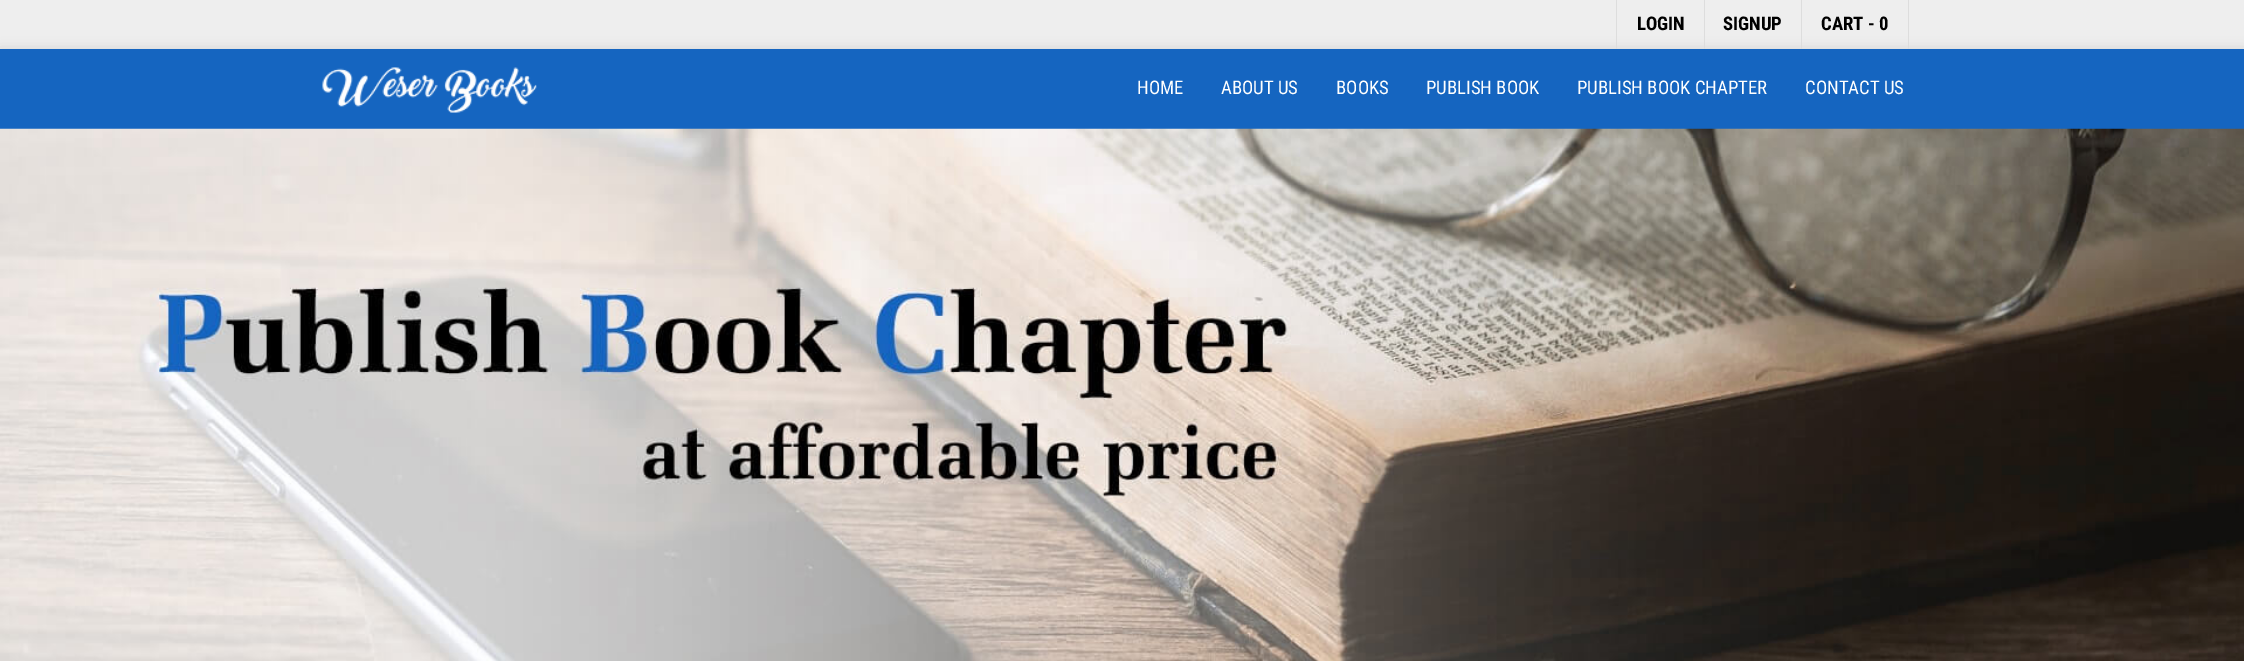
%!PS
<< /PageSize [2244 661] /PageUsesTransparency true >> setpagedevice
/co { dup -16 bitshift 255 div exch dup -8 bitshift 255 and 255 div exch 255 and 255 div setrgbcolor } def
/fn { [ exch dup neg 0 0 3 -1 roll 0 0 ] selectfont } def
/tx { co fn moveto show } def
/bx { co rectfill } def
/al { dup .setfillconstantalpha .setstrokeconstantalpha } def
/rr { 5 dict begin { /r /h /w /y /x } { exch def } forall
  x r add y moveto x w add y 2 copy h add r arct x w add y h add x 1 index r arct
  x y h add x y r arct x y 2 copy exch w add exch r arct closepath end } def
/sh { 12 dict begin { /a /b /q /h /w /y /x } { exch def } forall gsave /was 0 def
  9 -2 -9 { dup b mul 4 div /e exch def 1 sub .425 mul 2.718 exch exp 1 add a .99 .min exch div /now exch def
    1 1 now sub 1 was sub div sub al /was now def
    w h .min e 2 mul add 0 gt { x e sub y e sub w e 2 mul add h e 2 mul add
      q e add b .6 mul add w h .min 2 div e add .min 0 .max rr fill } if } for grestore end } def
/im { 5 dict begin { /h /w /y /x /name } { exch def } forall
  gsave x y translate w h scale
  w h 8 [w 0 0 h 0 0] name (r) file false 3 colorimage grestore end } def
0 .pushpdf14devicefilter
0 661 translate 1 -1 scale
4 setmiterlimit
0 0 2244 661 16#EEEEEE bx
16#000000 co
0 50 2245 80 0 6 .12 sh
1616 0 1 49 16#DDDDDD bx
1704 0 1 49 16#DDDDDD bx
1908 0 1 49 16#DDDDDD bx
1801 0 1 49 16#DDDDDD bx
0 49 2244 80 16#1565C0 bx
(media/1.raw) 322 67 215 46 im
(media/2.raw) 0 128 2244 533 im
(LOGIN) 1637 30 /RobotoCondensed-Bold 18.75 16#000000 tx
(SIGNUP) 1723 30 /RobotoCondensed-Bold 18.75 16#000000 tx
(CART - 0) 1821 30 /RobotoCondensed-Bold 18.75 16#000000 tx
(HOME) 1137 94 /RobotoCondensed-Regular 18.75 16#FFFFFF tx
(ABOUT US) 1221 94 /RobotoCondensed-Regular 18.75 16#FFFFFF tx
(BOOKS) 1336 94 /RobotoCondensed-Regular 18.75 16#FFFFFF tx
(PUBLISH BOOK) 1426 94 /RobotoCondensed-Regular 18.75 16#FFFFFF tx
(PUBLISH BOOK CHAPTER) 1577 94 /RobotoCondensed-Regular 18.75 16#FFFFFF tx
(CONTACT US) 1805 94 /RobotoCondensed-Regular 18.75 16#FFFFFF tx
.poppdf14devicefilter showpage
